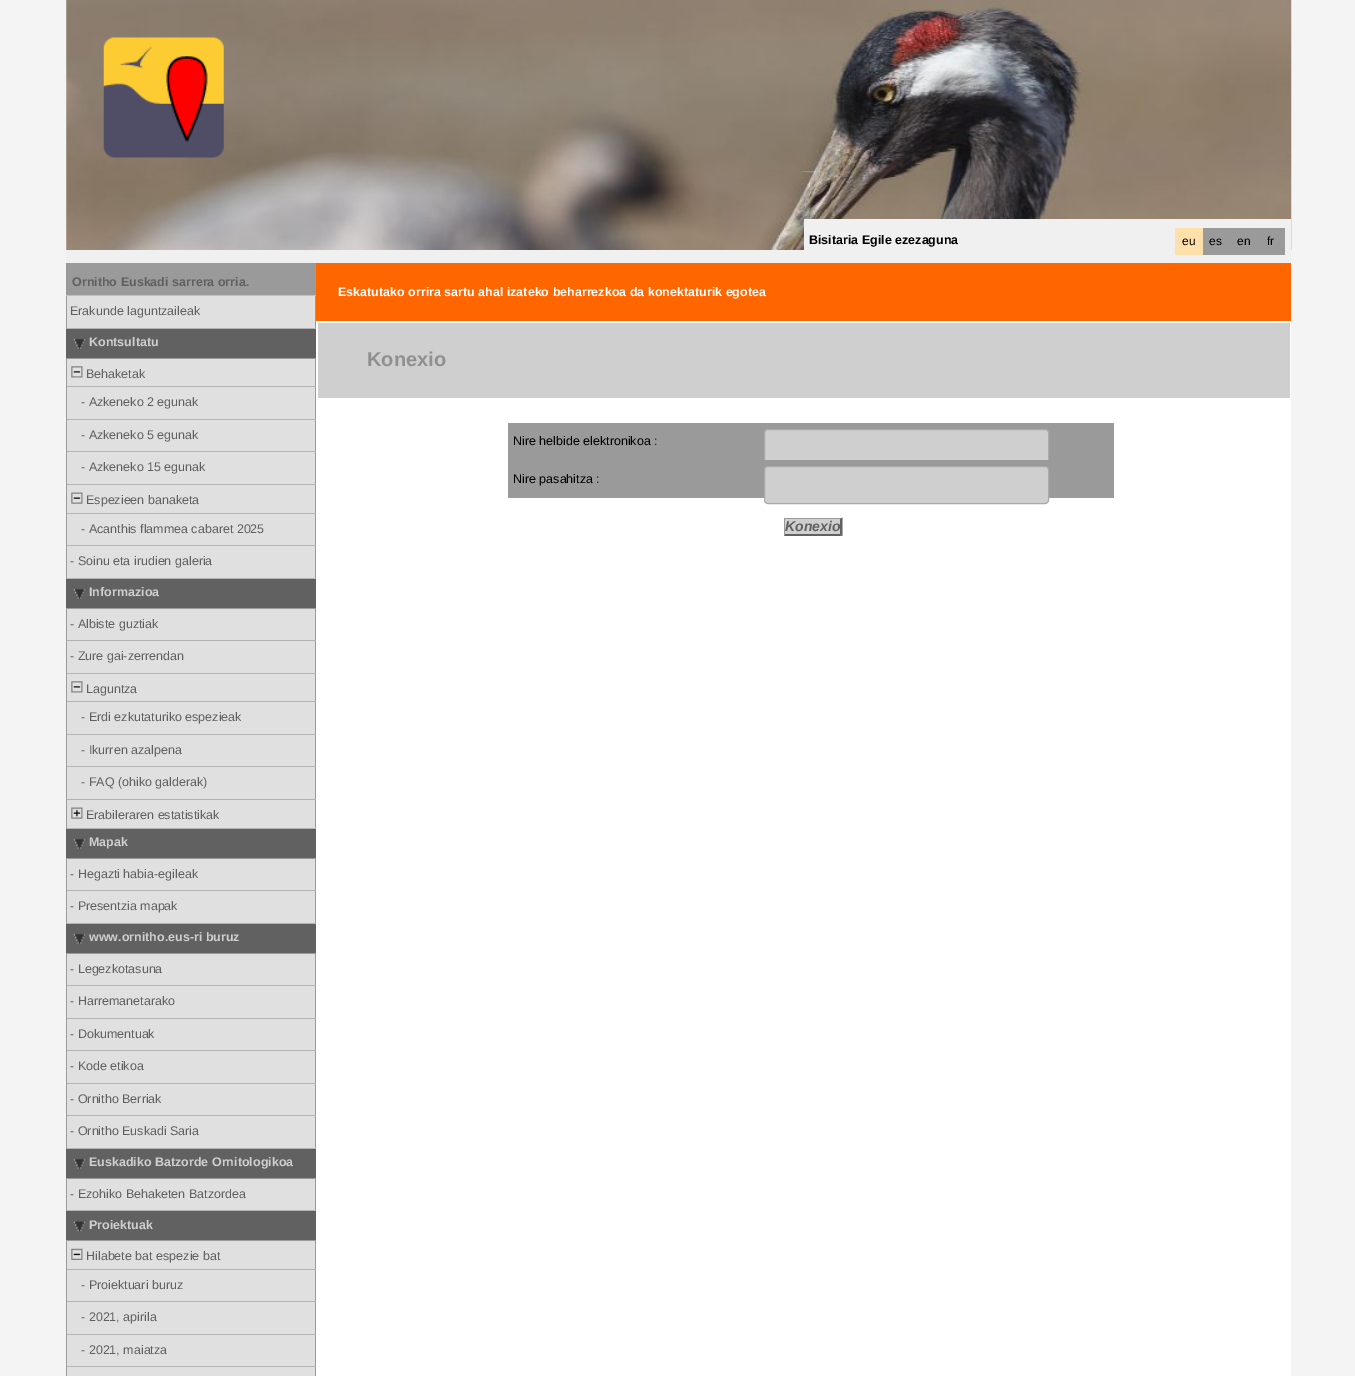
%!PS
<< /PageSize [1355 1376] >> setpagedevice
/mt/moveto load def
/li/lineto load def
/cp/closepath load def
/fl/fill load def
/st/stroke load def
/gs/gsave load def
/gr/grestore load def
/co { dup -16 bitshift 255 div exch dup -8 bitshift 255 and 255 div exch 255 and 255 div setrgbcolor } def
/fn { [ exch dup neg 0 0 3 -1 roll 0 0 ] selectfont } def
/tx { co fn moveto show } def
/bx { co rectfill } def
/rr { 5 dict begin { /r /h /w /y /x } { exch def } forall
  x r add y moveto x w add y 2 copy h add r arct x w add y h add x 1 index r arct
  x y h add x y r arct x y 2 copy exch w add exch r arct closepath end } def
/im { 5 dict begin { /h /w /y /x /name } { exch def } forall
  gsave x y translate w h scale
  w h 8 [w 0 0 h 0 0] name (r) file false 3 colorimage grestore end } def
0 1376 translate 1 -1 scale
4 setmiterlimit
0 0 1355 1376 16#F4F4F4 bx
(media/1.raw) 66 0 1226 250 im
(media/2.raw) 103 37 121 121 im
804 219 487 31 16#F0F0F0 bx
66 250 1225 13 16#F0F0F0 bx
1175 228 28 27 16#FFE0AA bx
1203 228 82 27 16#9A9A9A bx
316 321 975 1055 16#FFFFFF bx
66 263 250 32 16#9A9A9A bx
66 295 250 1 16#C0C0C0 bx
67 296 248 32 16#E0E0E0 bx
315 296 1 33 16#9A9A9A bx
66 328 250 1 16#B3B3B3 bx
66 296 1 33 16#9A9A9A bx
66 329 250 29 16#616161 bx
66 358 250 1 16#9A9A9A bx
(media/3.raw) 73 338 13 12 im
67 359 248 60 16#E0E0E0 bx
315 359 1 220 16#9A9A9A bx
66 386 250 1 16#B3B3B3 bx
66 359 1 29 16#9A9A9A bx
(media/4.raw) 71 366 12 12 im
66 419 250 1 16#B3B3B3 bx
66 388 1 32 16#9A9A9A bx
67 420 248 64 16#E0E0E0 bx
66 451 250 1 16#B3B3B3 bx
66 420 1 33 16#9A9A9A bx
66 484 250 1 16#B3B3B3 bx
66 453 1 32 16#9A9A9A bx
67 485 248 28 16#E0E0E0 bx
66 513 250 1 16#B3B3B3 bx
66 485 1 29 16#9A9A9A bx
(media/5.raw) 71 492 12 12 im
67 514 248 31 16#E0E0E0 bx
66 545 250 1 16#B3B3B3 bx
66 514 1 32 16#9A9A9A bx
67 546 248 32 16#E0E0E0 bx
66 578 250 1 16#B3B3B3 bx
66 546 1 33 16#9A9A9A bx
66 579 250 29 16#616161 bx
66 608 250 1 16#9A9A9A bx
(media/3.raw) 73 588 13 12 im
67 609 248 31 16#E0E0E0 bx
315 609 1 220 16#9A9A9A bx
66 640 250 1 16#B3B3B3 bx
66 609 1 32 16#9A9A9A bx
67 641 248 32 16#E0E0E0 bx
66 673 250 1 16#B3B3B3 bx
66 641 1 33 16#9A9A9A bx
67 674 248 60 16#E0E0E0 bx
66 701 250 1 16#B3B3B3 bx
66 674 1 29 16#9A9A9A bx
(media/4.raw) 71 681 12 12 im
66 734 250 1 16#B3B3B3 bx
66 703 1 32 16#9A9A9A bx
67 735 248 64 16#E0E0E0 bx
66 766 250 1 16#B3B3B3 bx
66 735 1 33 16#9A9A9A bx
66 799 250 1 16#B3B3B3 bx
66 768 1 32 16#9A9A9A bx
67 800 248 28 16#E0E0E0 bx
66 828 250 1 16#B3B3B3 bx
66 800 1 29 16#9A9A9A bx
(media/6.raw) 71 807 12 12 im
66 829 250 29 16#616161 bx
66 858 250 1 16#9A9A9A bx
(media/3.raw) 73 838 13 12 im
67 859 248 31 16#E0E0E0 bx
315 859 1 65 16#9A9A9A bx
66 890 250 1 16#B3B3B3 bx
66 859 1 32 16#9A9A9A bx
67 891 248 32 16#E0E0E0 bx
66 923 250 1 16#B3B3B3 bx
66 891 1 33 16#9A9A9A bx
66 924 250 29 16#616161 bx
66 953 250 1 16#9A9A9A bx
(media/7.raw) 73 933 13 12 im
67 954 248 31 16#E0E0E0 bx
315 954 1 195 16#9A9A9A bx
66 985 250 1 16#B3B3B3 bx
66 954 1 32 16#9A9A9A bx
67 986 248 32 16#E0E0E0 bx
66 1018 250 1 16#B3B3B3 bx
66 986 1 33 16#9A9A9A bx
67 1019 248 31 16#E0E0E0 bx
66 1050 250 1 16#B3B3B3 bx
66 1019 1 32 16#9A9A9A bx
67 1051 248 32 16#E0E0E0 bx
66 1083 250 1 16#B3B3B3 bx
66 1051 1 33 16#9A9A9A bx
67 1084 248 31 16#E0E0E0 bx
66 1115 250 1 16#B3B3B3 bx
66 1084 1 32 16#9A9A9A bx
67 1116 248 32 16#E0E0E0 bx
66 1148 250 1 16#B3B3B3 bx
66 1116 1 33 16#9A9A9A bx
66 1149 250 29 16#616161 bx
66 1178 250 1 16#9A9A9A bx
(media/3.raw) 73 1158 13 12 im
67 1179 248 31 16#E0E0E0 bx
315 1179 1 32 16#9A9A9A bx
66 1210 250 1 16#B3B3B3 bx
66 1179 1 32 16#9A9A9A bx
66 1211 250 29 16#616161 bx
66 1240 250 1 16#9A9A9A bx
(media/8.raw) 73 1221 13 12 im
67 1241 248 28 16#E0E0E0 bx
315 1241 1 127 16#9A9A9A bx
66 1269 250 1 16#B3B3B3 bx
66 1241 1 29 16#9A9A9A bx
(media/9.raw) 71 1248 12 12 im
67 1270 248 64 16#E0E0E0 bx
66 1301 250 1 16#B3B3B3 bx
66 1270 1 33 16#9A9A9A bx
66 1334 250 1 16#B3B3B3 bx
66 1303 1 32 16#9A9A9A bx
67 1335 248 33 16#E0E0E0 bx
66 1366 250 1 16#B3B3B3 bx
66 1335 1 33 16#9A9A9A bx
66 1368 250 8 16#E0E0E0 bx
315 1368 1 8 16#9A9A9A bx
66 1368 1 8 16#9A9A9A bx
316 263 975 58 16#FF6600 bx
318 323 972 75 16#CFCFCF bx
508 423 606 37 16#9A9A9A bx
16#CFCFCF co
764.5 429.5 284 36 3.5 rr gs fl gr
16#AAAAAA co
st
508 460 606 38 16#9A9A9A bx
16#CFCFCF co
764.5 466.5 284 37 3.5 rr gs fl gr
16#AAAAAA co
st
785 519 55 15 16#CFCFCF bx
16#9A9A9A co
784 518 mt 842 518 li 840 519 li 785 519 li cp fl
16#616161 co
842.5 517.5 mt 842.5 536 li 840 534 li 840 519 li cp fl
842 536 mt 784 536 li 785 534 li 840 534 li cp fl
16#9A9A9A co
784 536 mt 784 517.5 li 785 519 li 785 534 li cp fl
(Bisitaria Egile ezezaguna) 809 244 /LiberationSans-Bold 12.5 16#000000 tx
(eu) 1182 245 /LiberationSans-Regular 12 16#000000 tx
(es) 1209 245 /LiberationSans-Regular 12 16#000000 tx
(en) 1237 245 /LiberationSans-Regular 12 16#000000 tx
(fr) 1267 245 /LiberationSans-Regular 12 16#000000 tx
(Ornitho Euskadi sarrera orria.) 72 286 /LiberationSans-Bold 12.5 16#606060 tx
(Erakunde laguntzaileak) 70 315 /LiberationSans-Regular 12.5 16#606060 tx
(Kontsultatu) 89 346 /LiberationSans-Bold 12.5 16#CFCFCF tx
(Behaketak) 86 378 /LiberationSans-Regular 12.5 16#606060 tx
(- Azkeneko 2 egunak) 81 406 /LiberationSans-Regular 12.5 16#606060 tx
(- Azkeneko 5 egunak) 81 439 /LiberationSans-Regular 12.5 16#606060 tx
(- Azkeneko 15 egunak) 81 471 /LiberationSans-Regular 12.5 16#606060 tx
(Espezieen banaketa) 86 504 /LiberationSans-Regular 12.5 16#606060 tx
(- Acanthis flammea cabaret 2025) 81 533 /LiberationSans-Regular 12.5 16#606060 tx
(- Soinu eta irudien galeria) 70 565 /LiberationSans-Regular 12.5 16#606060 tx
(Informazioa) 89 596 /LiberationSans-Bold 12.5 16#CFCFCF tx
(- Albiste guztiak) 70 628 /LiberationSans-Regular 12.5 16#606060 tx
(- Zure gai-zerrendan) 70 660 /LiberationSans-Regular 12.5 16#606060 tx
(Laguntza) 86 693 /LiberationSans-Regular 12.5 16#606060 tx
(- Erdi ezkutaturiko espezieak) 81 721 /LiberationSans-Regular 12.5 16#606060 tx
(- Ikurren azalpena) 81 754 /LiberationSans-Regular 12.5 16#606060 tx
(- FAQ \(ohiko galderak\)) 81 786 /LiberationSans-Regular 12.5 16#606060 tx
(Erabileraren estatistikak) 86 819 /LiberationSans-Regular 12.5 16#606060 tx
(Mapak) 89 846 /LiberationSans-Bold 12.5 16#CFCFCF tx
(- Hegazti habia-egileak) 70 878 /LiberationSans-Regular 12.5 16#606060 tx
(- Presentzia mapak) 70 910 /LiberationSans-Regular 12.5 16#606060 tx
(www.ornitho.eus-ri buruz) 89 941 /LiberationSans-Bold 12.5 16#CFCFCF tx
(- Legezkotasuna) 70 973 /LiberationSans-Regular 12.5 16#606060 tx
(- Harremanetarako) 70 1005 /LiberationSans-Regular 12.5 16#606060 tx
(- Dokumentuak) 70 1038 /LiberationSans-Regular 12.5 16#606060 tx
(- Kode etikoa) 70 1070 /LiberationSans-Regular 12.5 16#606060 tx
(- Ornitho Berriak) 70 1103 /LiberationSans-Regular 12.5 16#606060 tx
(- Ornitho Euskadi Saria) 70 1135 /LiberationSans-Regular 12.5 16#606060 tx
(Euskadiko Batzorde Ornitologikoa) 89 1166 /LiberationSans-Bold 12.5 16#CFCFCF tx
(- Ezohiko Behaketen Batzordea) 70 1198 /LiberationSans-Regular 12.5 16#606060 tx
(Proiektuak) 89 1229 /LiberationSans-Bold 12.5 16#CFCFCF tx
(Hilabete bat espezie bat) 86 1260 /LiberationSans-Regular 12.5 16#606060 tx
(- Proiektuari buruz) 81 1289 /LiberationSans-Regular 12.5 16#606060 tx
(- 2021, apirila) 81 1321 /LiberationSans-Regular 12.5 16#606060 tx
(- 2021, maiatza) 81 1354 /LiberationSans-Regular 12.5 16#606060 tx
(Eskatutako orrira sartu ahal izateko beharrezkoa da konektaturik egotea) 338 296 /LiberationSans-Bold 12.5 16#FFFFFF tx
(Konexio) 367 366 /LiberationSans-Bold 20 16#909090 tx
(Nire helbide elektronikoa :) 513 445 /LiberationSans-Regular 12.5 16#000000 tx
(Nire pasahitza :) 513 483 /LiberationSans-Regular 12.5 16#000000 tx
(Konexio) 785 531 /LiberationSans-BoldItalic 14 16#606060 tx
showpage
